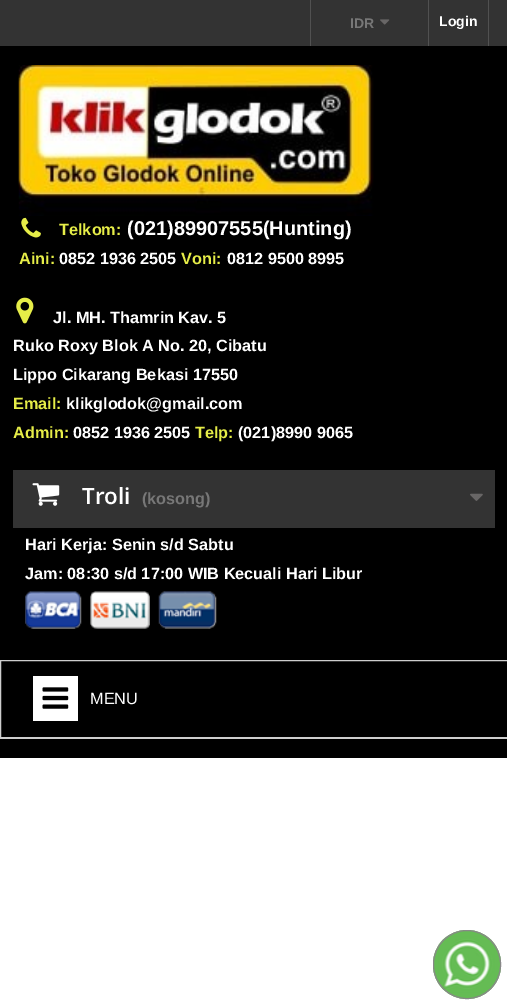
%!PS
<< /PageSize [507 1005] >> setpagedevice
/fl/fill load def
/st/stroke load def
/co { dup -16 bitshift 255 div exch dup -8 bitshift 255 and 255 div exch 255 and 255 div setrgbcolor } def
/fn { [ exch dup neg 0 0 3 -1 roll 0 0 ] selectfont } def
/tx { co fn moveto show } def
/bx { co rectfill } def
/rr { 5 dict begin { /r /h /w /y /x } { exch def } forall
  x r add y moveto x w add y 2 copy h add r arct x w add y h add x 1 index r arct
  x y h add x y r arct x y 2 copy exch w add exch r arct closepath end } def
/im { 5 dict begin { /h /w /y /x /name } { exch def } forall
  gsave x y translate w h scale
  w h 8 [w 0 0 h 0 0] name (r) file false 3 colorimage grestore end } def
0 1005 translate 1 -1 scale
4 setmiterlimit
0 0 507 1005 16#FFFFFF bx
0 46 507 712 16#000000 bx
0 0 507 46 16#333333 bx
310 0 1 46 16#515151 bx
(media/1.raw) 380 19 10 6 im
488 0 1 46 16#515151 bx
428 0 1 46 16#515151 bx
(media/2.raw) 18 65 356 151 im
(media/3.raw) 21 217 20 21 im
(media/4.raw) 16 297 18 27 im
13 470 482 58 16#333333 bx
(media/5.raw) 32 483 28 23 im
(media/6.raw) 470 493 13 8 im
(media/7.raw) 25 591 57 38 im
(media/8.raw) 90 591 60 38 im
(media/9.raw) 158 591 59 38 im
16#CECECE co
.5 660.5 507 77 rectstroke
33 676 45 45 16#FFFFFF bx
(media/10.raw) 42 687 27 22 im
0 738 507 1 16#CECECE bx
16#65BC54 co
433 930 68 69 34 rr fl
(media/11.raw) 438 936 58 57 im
16#888888 co
433.5 930.5 67 68 33.5 rr st
(IDR) 350 28 /LiberationSans-Bold 14 16#777777 tx
(Login) 439 26 /LiberationSans-Bold 14 16#FFFFFF tx
(Telkom:) 59 235 /LiberationSans-Bold 16.25 16#E6ED48 tx
(\(021\)89907555\(Hunting\)) 127 235 /LiberationSans-Bold 20 16#FFFFFF tx
(Aini:) 19 264 /LiberationSans-Bold 16.25 16#E6ED48 tx
(0852 1936 2505) 59 264 /LiberationSans-Bold 16.25 16#FFFFFF tx
(Voni:) 181 264 /LiberationSans-Bold 16.25 16#E6ED48 tx
(0812 9500 8995) 227 264 /LiberationSans-Bold 16.25 16#FFFFFF tx
(Jl. MH. Thamrin Kav. 5) 53 323 /LiberationSans-Bold 16.25 16#FFFFFF tx
(Ruko Roxy Blok A No. 20, Cibatu) 13 351 /LiberationSans-Bold 16.25 16#FFFFFF tx
(Lippo Cikarang Bekasi 17550) 13 380 /LiberationSans-Bold 16.25 16#FFFFFF tx
(Email:) 13 409 /LiberationSans-Bold 16.25 16#E6ED48 tx
(klikglodok@gmail.com) 66 409 /LiberationSans-Bold 16.25 16#FFFFFF tx
(Admin:) 13 438 /LiberationSans-Bold 16.25 16#E6ED48 tx
(0852 1936 2505) 73 438 /LiberationSans-Bold 16.25 16#FFFFFF tx
(Telp:) 195 438 /LiberationSans-Bold 16.25 16#E6ED48 tx
(\(021\)8990 9065) 238 438 /LiberationSans-Bold 16.25 16#FFFFFF tx
(Troli) 82 504 /OpenSans-SemiBold 22.5 16#FFFFFF tx
(\(kosong\)) 142 504 /LiberationSans-Bold 16.25 16#777777 tx
(Hari Kerja: Senin s/d Sabtu) 25 550 /LiberationSans-Bold 16.25 16#FFFFFF tx
(Jam: 08:30 s/d 17:00 WIB Kecuali Hari Libur) 25 579 /LiberationSans-Bold 16.25 16#FFFFFF tx
(MENU) 90 704 /LiberationSans-Regular 16.25 16#FFFFFF tx
showpage
